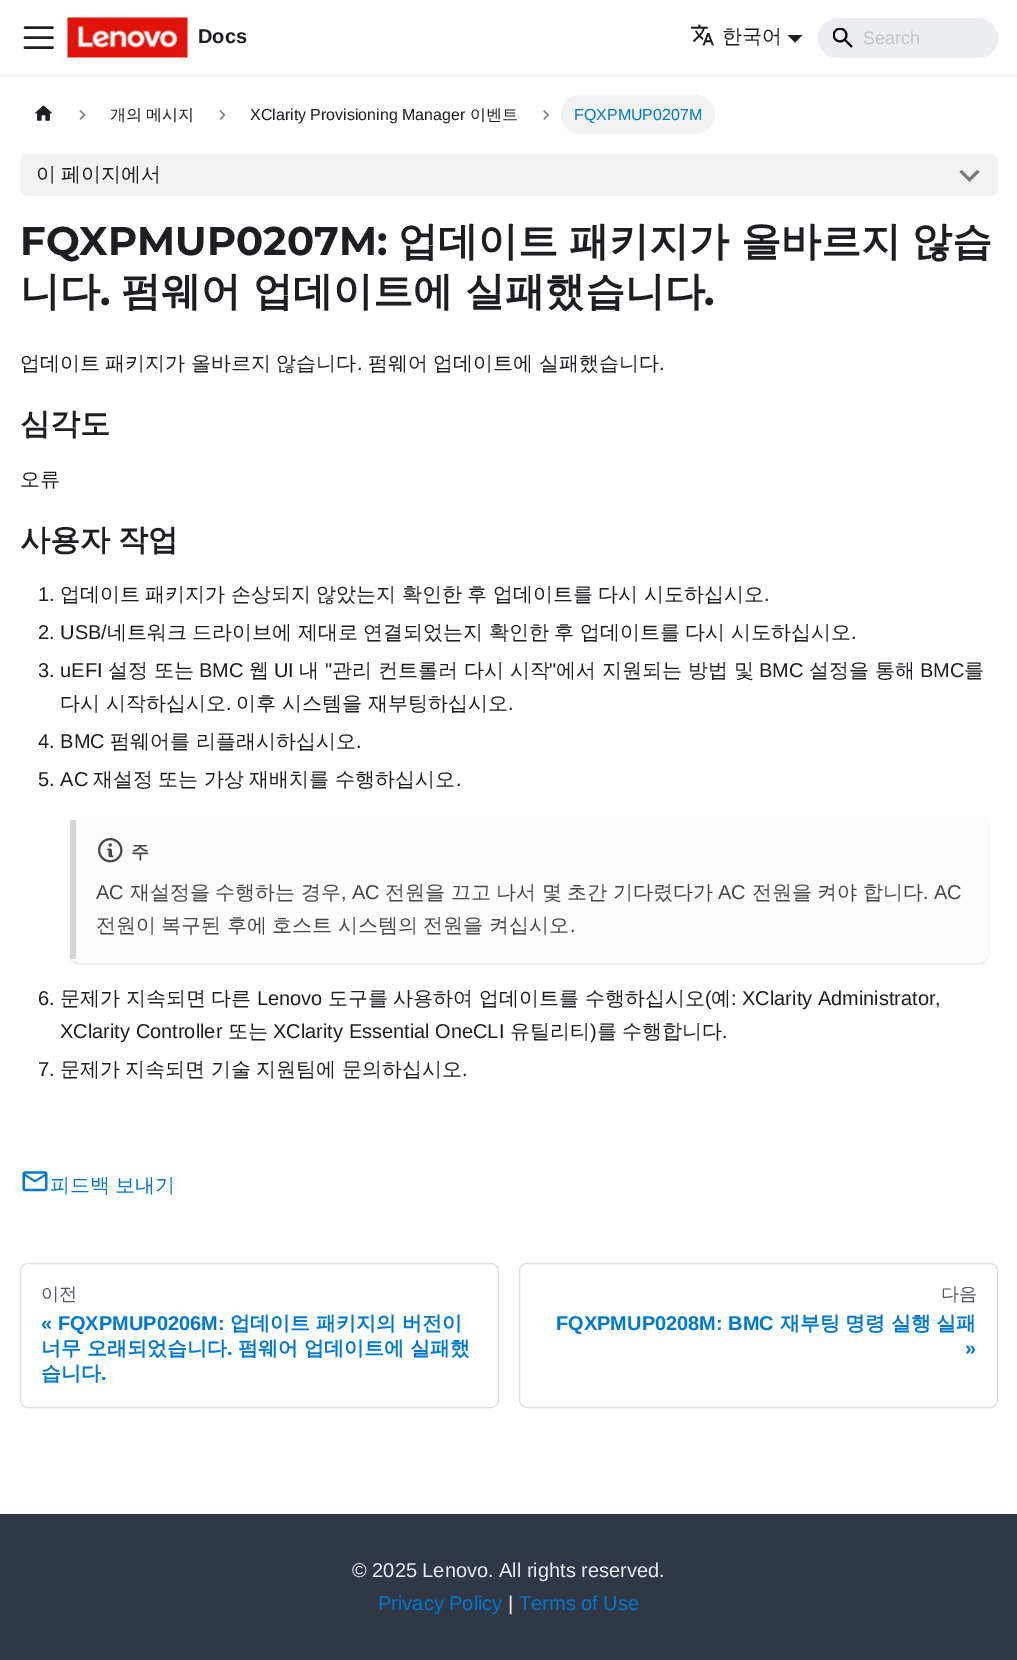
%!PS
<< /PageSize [1017 1660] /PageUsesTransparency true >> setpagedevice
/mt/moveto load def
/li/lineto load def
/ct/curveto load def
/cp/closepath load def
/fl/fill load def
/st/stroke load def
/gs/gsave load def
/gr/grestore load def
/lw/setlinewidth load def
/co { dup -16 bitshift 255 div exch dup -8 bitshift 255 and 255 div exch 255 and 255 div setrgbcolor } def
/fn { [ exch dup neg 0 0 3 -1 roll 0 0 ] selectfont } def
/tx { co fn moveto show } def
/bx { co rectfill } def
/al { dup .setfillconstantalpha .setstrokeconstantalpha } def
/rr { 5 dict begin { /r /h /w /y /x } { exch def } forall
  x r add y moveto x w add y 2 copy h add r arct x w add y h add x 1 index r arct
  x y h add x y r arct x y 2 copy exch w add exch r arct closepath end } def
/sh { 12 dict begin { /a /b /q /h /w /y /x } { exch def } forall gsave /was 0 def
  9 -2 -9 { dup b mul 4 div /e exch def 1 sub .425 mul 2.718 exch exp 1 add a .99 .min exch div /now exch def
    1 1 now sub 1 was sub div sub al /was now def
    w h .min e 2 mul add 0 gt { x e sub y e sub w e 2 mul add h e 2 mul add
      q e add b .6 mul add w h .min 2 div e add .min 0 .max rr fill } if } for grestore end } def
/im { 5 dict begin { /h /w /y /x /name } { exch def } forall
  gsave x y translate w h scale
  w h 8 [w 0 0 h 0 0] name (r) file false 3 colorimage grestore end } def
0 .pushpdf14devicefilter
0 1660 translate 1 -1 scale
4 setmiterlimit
0 0 1017 1660 16#FFFFFF bx
gs
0 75 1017 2 rectclip
16#000000 co
0 1 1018 75 0 1 .1 sh
gr
16#1C1E21 co
2.5 lw
1 setlinecap
25 27.5 mt 52.5 27.5 li 25 37.5 mt 52.5 37.5 li 25 47.5 mt 52.5 47.5 li st
(media/1.raw) 67 17 121 41 im
(media/2.raw) 691 24 23 22 im
787.5 35 mt 802.5 35 li 795 42.5 li cp fl
16#EBEDF0 co
818 18 180 40 20 rr fl
(media/3.raw) 833 28 20 20 im
(media/4.raw) 35 105 17 16 im
(media/5.raw) 79 110 7 10 im
(media/5.raw) 219 110 7 10 im
(media/6.raw) 543 110 7 10 im
16#F2F2F2 co
561 95 154 39 19.5 rr fl
20 154 978 42 8 rr fl
16#797979 co
977 170 mt 969.5 177.5 li 961.5 170 li 959.5 172 li 969.5 182 li 979.5 172 li cp fl
gs
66 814 mt 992 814 li 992 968 li 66 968 li cp 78 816 mt 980 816 li 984.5 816 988 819.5 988 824 ct 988 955 li 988 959.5 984.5 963 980 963 ct 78 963 li 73.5 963 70 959.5 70 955 ct 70 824 li 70 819.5 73.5 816 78 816 ct cp eoclip newpath
16#000000 co
70 818 918 146 8 1 .1 sh
gr
16#FDFDFE co
78 816 mt 980 816 li 984 816 988 820 988 824 ct 988 954 li 988 959 984 962 980 962 ct 78 962 li 77 962 76 959 76 954 ct 76 824 li 76 820 77 816 78 816 ct cp fl
70 820 6 139 16#D4D5D8 bx
(media/7.raw) 98 838 25 25 im
(media/8.raw) 22 1171 26 21 im
16#DADDE1 co
1 lw
0 setlinecap
20.5 1263.5 478 144 7.5 rr st
519.5 1263.5 478 144 7.5 rr st
0 1514 1017 146 16#303846 bx
(Docs) 198 43 /LiberationSans-Bold 20 16#1C1E21 tx
(한국어) 722 43 /WenQuanYiZenHei-Medium 20 16#1C1E21 tx
(Search) 863 44 /LiberationSans-Regular 18 16#BEC3C9 tx
/WenQuanYiZenHei-Medium 16 fn
16#1C1E21 co
110 120 mt -.5 0 32 (개의 메시지) widthshow
(XClarity Provisioning Manager) 250 120 /LiberationSans-Regular 16 16#1C1E21 tx
(이벤트) 470 120 /WenQuanYiZenHei-Medium 16 16#1C1E21 tx
(FQXPMUP0207M) 574 120 /LiberationSans-Regular 16 16#0078D0 tx
/WenQuanYiZenHei-Medium 20 fn
16#1C1E21 co
36 181 mt -.5 0 32 (이 페이지에서) widthshow
(FQXPMUP0207M:) 20 255 /Montserrat-Bold 40 16#1C1E21 tx
/WenQuanYiZenHei-Bold 40 fn
398 255 mt -.5 0 32 (업데이트 패키지가 올바르지 않습) widthshow
(니다) 20 305 /WenQuanYiZenHei-Bold 40 16#1C1E21 tx
(.) 100 305 /Montserrat-Bold 40 16#1C1E21 tx
(펌웨어 업데이트에 실패했습니다) 121 305 /WenQuanYiZenHei-Bold 40 16#1C1E21 tx
(.) 704 305 /Montserrat-Bold 40 16#1C1E21 tx
/WenQuanYiZenHei-Medium 20 fn
20 370 mt -.5 0 32 (업데이트 패키지가 올바르지 않습니다) widthshow
(.) 357 370 /LiberationSans-Regular 20 16#1C1E21 tx
/WenQuanYiZenHei-Medium 20 fn
368 370 mt -.5 0 32 (펌웨어 업데이트에 실패했습니다) widthshow
(.) 659 370 /LiberationSans-Regular 20 16#1C1E21 tx
(심각도) 20 434 /WenQuanYiZenHei-Bold 30 16#1C1E21 tx
(오류) 20 486 /WenQuanYiZenHei-Medium 20 16#1C1E21 tx
/WenQuanYiZenHei-Bold 30 fn
20 550 mt -.5 0 32 (사용자 작업) widthshow
(1.) 38 601 /LiberationSans-Regular 20 16#1C1E21 tx
/WenQuanYiZenHei-Medium 20 fn
60 601 mt -.5 0 32 (업데이트 패키지가 손상되지 않았는지 확인한 후 업데이트를 다시 시도하십시오) widthshow
(.) 764 601 /LiberationSans-Regular 20 16#1C1E21 tx
(2. USB/) 38 639 /LiberationSans-Regular 20 16#1C1E21 tx
/WenQuanYiZenHei-Medium 20 fn
107 639 mt -.5 0 32 (네트워크 드라이브에 제대로 연결되었는지 확인한 후 업데이트를 다시 시도하십시오) widthshow
(.) 851 639 /LiberationSans-Regular 20 16#1C1E21 tx
(3. uEFI) 38 677 /LiberationSans-Regular 20 16#1C1E21 tx
(설정 또는) 108 677 /WenQuanYiZenHei-Medium 20 16#1C1E21 tx
(BMC) 199 677 /LiberationSans-Regular 20 16#1C1E21 tx
(웹) 249 677 /WenQuanYiZenHei-Medium 20 16#1C1E21 tx
(UI) 274 677 /LiberationSans-Regular 20 16#1C1E21 tx
(내) 299 677 /WenQuanYiZenHei-Medium 20 16#1C1E21 tx
(") 325 677 /LiberationSans-Regular 20 16#1C1E21 tx
(관리 컨트롤러 다시 시작) 332 677 /WenQuanYiZenHei-Medium 20 16#1C1E21 tx
(") 549 677 /LiberationSans-Regular 20 16#1C1E21 tx
(에서 지원되는 방법 및) 556 677 /WenQuanYiZenHei-Medium 20 16#1C1E21 tx
(BMC) 759 677 /LiberationSans-Regular 20 16#1C1E21 tx
(설정을 통해) 809 677 /WenQuanYiZenHei-Medium 20 16#1C1E21 tx
(BMC) 920 677 /LiberationSans-Regular 20 16#1C1E21 tx
(를) 964 677 /WenQuanYiZenHei-Medium 20 16#1C1E21 tx
(다시 시작하십시오) 60 710 /WenQuanYiZenHei-Medium 20 16#1C1E21 tx
(.) 226 710 /LiberationSans-Regular 20 16#1C1E21 tx
(이후 시스템을 재부팅하십시오) 236 710 /WenQuanYiZenHei-Medium 20 16#1C1E21 tx
(.) 508 710 /LiberationSans-Regular 20 16#1C1E21 tx
(4. BMC) 38 748 /LiberationSans-Regular 20 16#1C1E21 tx
(펌웨어를 리플래시하십시오) 110 748 /WenQuanYiZenHei-Medium 20 16#1C1E21 tx
(.) 356 748 /LiberationSans-Regular 20 16#1C1E21 tx
(5. AC) 38 786 /LiberationSans-Regular 20 16#1C1E21 tx
/WenQuanYiZenHei-Medium 20 fn
93 786 mt -.5 0 32 (재설정 또는 가상 재배치를 수행하십시오) widthshow
(.) 456 786 /LiberationSans-Regular 20 16#1C1E21 tx
(주) 131 858 /WenQuanYiZenHei-Bold 18 16#474748 tx
(AC) 96 899 /LiberationSans-Regular 20 16#474748 tx
(재설정을) 130 899 /WenQuanYiZenHei-Medium 20 16#474748 tx
(수행하는) 215 899 /WenQuanYiZenHei-Medium 20 16#474748 tx
(경우) 301 899 /WenQuanYiZenHei-Medium 20 16#474748 tx
(, AC) 341 899 /LiberationSans-Regular 20 16#474748 tx
(전원을) 385 899 /WenQuanYiZenHei-Medium 20 16#474748 tx
(끄고) 451 899 /WenQuanYiZenHei-Medium 20 16#474748 tx
(나서) 496 899 /WenQuanYiZenHei-Medium 20 16#474748 tx
(몇) 542 899 /WenQuanYiZenHei-Medium 20 16#474748 tx
(초간) 567 899 /WenQuanYiZenHei-Medium 20 16#474748 tx
(기다렸다가) 613 899 /WenQuanYiZenHei-Medium 20 16#474748 tx
(AC) 718 899 /LiberationSans-Regular 20 16#474748 tx
(전원을) 752 899 /WenQuanYiZenHei-Medium 20 16#474748 tx
(켜야) 817 899 /WenQuanYiZenHei-Medium 20 16#474748 tx
(합니다) 863 899 /WenQuanYiZenHei-Medium 20 16#474748 tx
(. AC) 923 899 /LiberationSans-Regular 20 16#474748 tx
/WenQuanYiZenHei-Medium 20 fn
96 932 mt -.5 0 32 (전원이 복구된 후에 호스트 시스템의 전원을 켜십시오) widthshow
(.) 570 932 /LiberationSans-Regular 20 16#474748 tx
(6.) 38 1005 /LiberationSans-Regular 20 16#1C1E21 tx
(문제가) 60 1005 /WenQuanYiZenHei-Medium 20 16#1C1E21 tx
(지속되면) 126 1005 /WenQuanYiZenHei-Medium 20 16#1C1E21 tx
(다른) 211 1005 /WenQuanYiZenHei-Medium 20 16#1C1E21 tx
(Lenovo) 257 1005 /LiberationSans-Regular 20 16#1C1E21 tx
(도구를) 328 1005 /WenQuanYiZenHei-Medium 20 16#1C1E21 tx
(사용하여) 393 1005 /WenQuanYiZenHei-Medium 20 16#1C1E21 tx
(업데이트를) 479 1005 /WenQuanYiZenHei-Medium 20 16#1C1E21 tx
(수행하십시오) 585 1005 /WenQuanYiZenHei-Medium 20 16#1C1E21 tx
(\() 705 1005 /LiberationSans-Regular 20 16#1C1E21 tx
(예) 711 1005 /WenQuanYiZenHei-Medium 20 16#1C1E21 tx
(: XClarity Administrator,) 731 1005 /LiberationSans-Regular 20 16#1C1E21 tx
(XClarity Controller) 60 1038 /LiberationSans-Regular 20 16#1C1E21 tx
(또는) 228 1038 /WenQuanYiZenHei-Medium 20 16#1C1E21 tx
(XClarity Essential OneCLI) 273 1038 /LiberationSans-Regular 20 16#1C1E21 tx
(유틸리티) 510 1038 /WenQuanYiZenHei-Medium 20 16#1C1E21 tx
(\)) 590 1038 /LiberationSans-Regular 20 16#1C1E21 tx
(를) 597 1038 /WenQuanYiZenHei-Medium 20 16#1C1E21 tx
(수행합니다) 622 1038 /WenQuanYiZenHei-Medium 20 16#1C1E21 tx
(.) 722 1038 /LiberationSans-Regular 20 16#1C1E21 tx
(7.) 38 1076 /LiberationSans-Regular 20 16#1C1E21 tx
/WenQuanYiZenHei-Medium 20 fn
60 1076 mt -.5 0 32 (문제가 지속되면 기술 지원팀에 문의하십시오) widthshow
(.) 462 1076 /LiberationSans-Regular 20 16#1C1E21 tx
/WenQuanYiZenHei-Medium 20 fn
16#0078D0 co
50 1192 mt -.5 0 32 (피드백 보내기) widthshow
(이전) 41 1300 /WenQuanYiZenHei-Medium 18 16#525860 tx
(« FQXPMUP0206M:) 41 1330 /LiberationSans-Bold 20 16#0078D0 tx
(업데이트 패키지의 버전이) 230 1330 /WenQuanYiZenHei-Bold 20 16#0078D0 tx
(너무 오래되었습니다) 41 1355 /WenQuanYiZenHei-Bold 20 16#0078D0 tx
(.) 227 1355 /LiberationSans-Bold 20 16#0078D0 tx
(펌웨어 업데이트에 실패했) 238 1355 /WenQuanYiZenHei-Bold 20 16#0078D0 tx
(습니다) 41 1380 /WenQuanYiZenHei-Bold 20 16#0078D0 tx
(.) 101 1380 /LiberationSans-Bold 20 16#0078D0 tx
(다음) 941 1300 /WenQuanYiZenHei-Medium 18 16#525860 tx
(FQXPMUP0208M: BMC) 556 1330 /LiberationSans-Bold 20 16#0078D0 tx
(재부팅) 780 1330 /WenQuanYiZenHei-Bold 20 16#0078D0 tx
(명령) 845 1330 /WenQuanYiZenHei-Bold 20 16#0078D0 tx
(실행) 891 1330 /WenQuanYiZenHei-Bold 20 16#0078D0 tx
(실패) 936 1330 /WenQuanYiZenHei-Bold 20 16#0078D0 tx
(») 965 1355 /LiberationSans-Bold 20 16#0078D0 tx
(© 2025 Lenovo. All rights reserved.) 352 1577 /LiberationSans-Regular 20 16#EBEDF0 tx
(Privacy Policy) 378 1610 /LiberationSans-Regular 20 16#0078D0 tx
(|) 508 1610 /LiberationSans-Regular 20 16#EBEDF0 tx
(Terms of Use) 519 1610 /LiberationSans-Regular 20 16#0078D0 tx
.poppdf14devicefilter showpage
